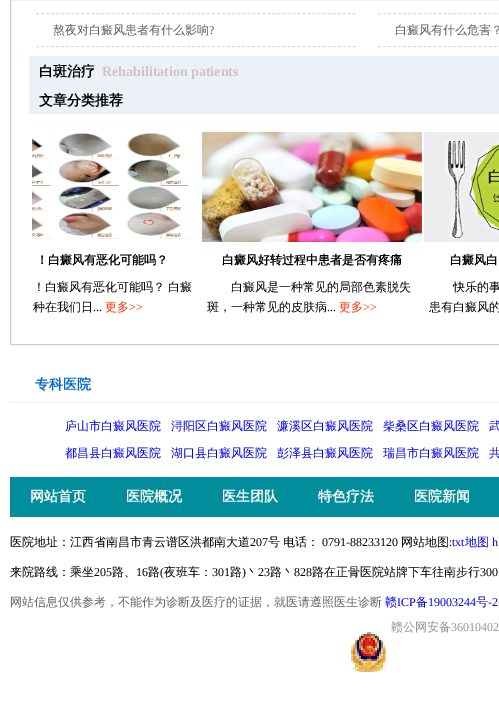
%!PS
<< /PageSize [499 717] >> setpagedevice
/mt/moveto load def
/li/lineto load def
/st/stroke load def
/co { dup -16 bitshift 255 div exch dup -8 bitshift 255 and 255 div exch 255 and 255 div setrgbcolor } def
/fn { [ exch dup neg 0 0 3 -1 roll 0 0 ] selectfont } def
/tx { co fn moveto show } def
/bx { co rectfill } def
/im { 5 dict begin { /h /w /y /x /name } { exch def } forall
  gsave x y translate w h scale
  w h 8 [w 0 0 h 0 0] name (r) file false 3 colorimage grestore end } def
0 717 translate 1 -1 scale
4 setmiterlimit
0 0 499 717 16#FFFFFF bx
16#CCCCCC co
10.5 -.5 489 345 rectstroke
16#DDDDDD co
[3 2.03] 0 setdash
36 13.5 mt 356 13.5 li st
36 46.5 mt 356 46.5 li st
378 13.5 mt 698 13.5 li st
378 46.5 mt 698 46.5 li st
29 56 470 58 16#EBF1F7 bx
(media/1.raw) 32 133 156 106 im
(media/2.raw) 201 132 221 110 im
(media/3.raw) 424 132 75 110 im
10 402 489 1 16#EFEFEF bx
10 477 489 40 16#008E9C bx
(media/4.raw) 351 632 35 40 im
(熬夜对白癜风患者有什么影响) 53 34 /WenQuanYiZenHei-Medium 12 16#5C5C5A tx
(?) 209 34 /LiberationSerif-Regular 12 16#5C5C5A tx
(白癜风有什么危害？) 395 34 /WenQuanYiZenHei-Medium 12 16#5C5C5A tx
(白斑治疗) 39 76 /WenQuanYiZenHei-Bold 14 16#000000 tx
(Rehabilitation patients) 102 76 /LiberationSerif-Bold 14 16#D0C3C3 tx
(文章分类推荐) 39 105 /WenQuanYiZenHei-Bold 14 16#000000 tx
(！白癜风有恶化可能吗？) 36 264 /WenQuanYiZenHei-Bold 12 16#000000 tx
/WenQuanYiZenHei-Medium 12 fn
33 291 mt -1 0 32 (！白癜风有恶化可能吗？ 白癜) widthshow
(种在我们日) 33 311 /WenQuanYiZenHei-Medium 12 16#000000 tx
(更多) 105 311 /WenQuanYiZenHei-Medium 12 16#FF3300 tx
(>>) 129 311 /LiberationSerif-Regular 12 16#FF3300 tx
(...) 93 311 /LiberationSerif-Regular 12 16#000000 tx
(白癜风好转过程中患者是否有疼痛) 222 264 /WenQuanYiZenHei-Bold 12 16#000000 tx
(白癜风是一种常见的局部色素脱失) 231 291 /WenQuanYiZenHei-Medium 12 16#000000 tx
(斑，一种常见的皮肤病) 207 311 /WenQuanYiZenHei-Medium 12 16#000000 tx
(更多) 339 311 /WenQuanYiZenHei-Medium 12 16#FF3300 tx
(>>) 363 311 /LiberationSerif-Regular 12 16#FF3300 tx
(...) 327 311 /LiberationSerif-Regular 12 16#000000 tx
(白癜风白) 450 264 /WenQuanYiZenHei-Bold 12 16#000000 tx
(快乐的事) 453 291 /WenQuanYiZenHei-Medium 12 16#000000 tx
(患有白癜风的) 429 311 /WenQuanYiZenHei-Medium 12 16#000000 tx
(专科医院) 35 389 /WenQuanYiZenHei-Bold 14 16#0066CC tx
(庐山市白癜风医院) 65 430 /WenQuanYiZenHei-Medium 12 16#0000EE tx
(浔阳区白癜风医院) 171 430 /WenQuanYiZenHei-Medium 12 16#0000EE tx
(濂溪区白癜风医院) 277 430 /WenQuanYiZenHei-Medium 12 16#0000EE tx
(柴桑区白癜风医院) 383 430 /WenQuanYiZenHei-Medium 12 16#0000EE tx
(武) 489 430 /WenQuanYiZenHei-Medium 12 16#0000EE tx
(都昌县白癜风医院) 65 457 /WenQuanYiZenHei-Medium 12 16#0000EE tx
(湖口县白癜风医院) 171 457 /WenQuanYiZenHei-Medium 12 16#0000EE tx
(彭泽县白癜风医院) 277 457 /WenQuanYiZenHei-Medium 12 16#0000EE tx
(瑞昌市白癜风医院) 383 457 /WenQuanYiZenHei-Medium 12 16#0000EE tx
(共) 489 457 /WenQuanYiZenHei-Medium 12 16#0000EE tx
(网站首页) 30 501 /WenQuanYiZenHei-Bold 14 16#FFFFFF tx
(医院概况) 126 501 /WenQuanYiZenHei-Bold 14 16#FFFFFF tx
(医生团队) 222 501 /WenQuanYiZenHei-Bold 14 16#FFFFFF tx
(特色疗法) 318 501 /WenQuanYiZenHei-Bold 14 16#FFFFFF tx
(医院新闻) 414 501 /WenQuanYiZenHei-Bold 14 16#FFFFFF tx
(医院地址：江西省南昌市青云谱区洪都南大道) 10 546 /WenQuanYiZenHei-Medium 12 16#000000 tx
(207) 250 546 /LiberationSerif-Regular 12 16#000000 tx
(号) 268 546 /WenQuanYiZenHei-Medium 12 16#000000 tx
(电话：) 283 546 /WenQuanYiZenHei-Medium 12 16#000000 tx
(0791-88233120) 322 546 /LiberationSerif-Regular 12 16#000000 tx
(网站地图) 401 546 /WenQuanYiZenHei-Medium 12 16#000000 tx
(:) 449 546 /LiberationSerif-Regular 12 16#000000 tx
(txt) 452 546 /LiberationSerif-Regular 12 16#0000EE tx
(地图) 465 546 /WenQuanYiZenHei-Medium 12 16#0000EE tx
(h) 492 546 /LiberationSerif-Regular 12 16#0000EE tx
(来院路线：乘坐) 10 576 /WenQuanYiZenHei-Medium 12 16#000000 tx
(205) 94 576 /LiberationSerif-Regular 12 16#000000 tx
(路、) 112 576 /WenQuanYiZenHei-Medium 12 16#000000 tx
(16) 136 576 /LiberationSerif-Regular 12 16#000000 tx
(路) 148 576 /WenQuanYiZenHei-Medium 12 16#000000 tx
(\() 160 576 /LiberationSerif-Regular 12 16#000000 tx
(夜班车：) 164 576 /WenQuanYiZenHei-Medium 12 16#000000 tx
(301) 212 576 /LiberationSerif-Regular 12 16#000000 tx
(路) 230 576 /WenQuanYiZenHei-Medium 12 16#000000 tx
(\)) 242 576 /LiberationSerif-Regular 12 16#000000 tx
(丶) 246 576 /WenQuanYiZenHei-Medium 12 16#000000 tx
(23) 258 576 /LiberationSerif-Regular 12 16#000000 tx
(路丶) 270 576 /WenQuanYiZenHei-Medium 12 16#000000 tx
(828) 294 576 /LiberationSerif-Regular 12 16#000000 tx
(路在正骨医院站牌下车往南步行) 312 576 /WenQuanYiZenHei-Medium 12 16#000000 tx
(300) 480 576 /LiberationSerif-Regular 12 16#000000 tx
(网站信息仅供参考，不能作为诊断及医疗的证据，就医请遵照医生诊断) 10 606 /WenQuanYiZenHei-Medium 12 16#666666 tx
(赣) 385 606 /WenQuanYiZenHei-Medium 12 16#0000EE tx
(ICP) 397 606 /LiberationSerif-Regular 12 16#0000EE tx
(备) 416 606 /WenQuanYiZenHei-Medium 12 16#0000EE tx
(19003244) 428 606 /LiberationSerif-Regular 12 16#0000EE tx
(号) 476 606 /WenQuanYiZenHei-Medium 12 16#0000EE tx
(-2) 488 606 /LiberationSerif-Regular 12 16#0000EE tx
(赣公网安备) 391 631 /WenQuanYiZenHei-Medium 12 16#939393 tx
(36010402) 451 631 /LiberationSerif-Regular 12 16#939393 tx
showpage
